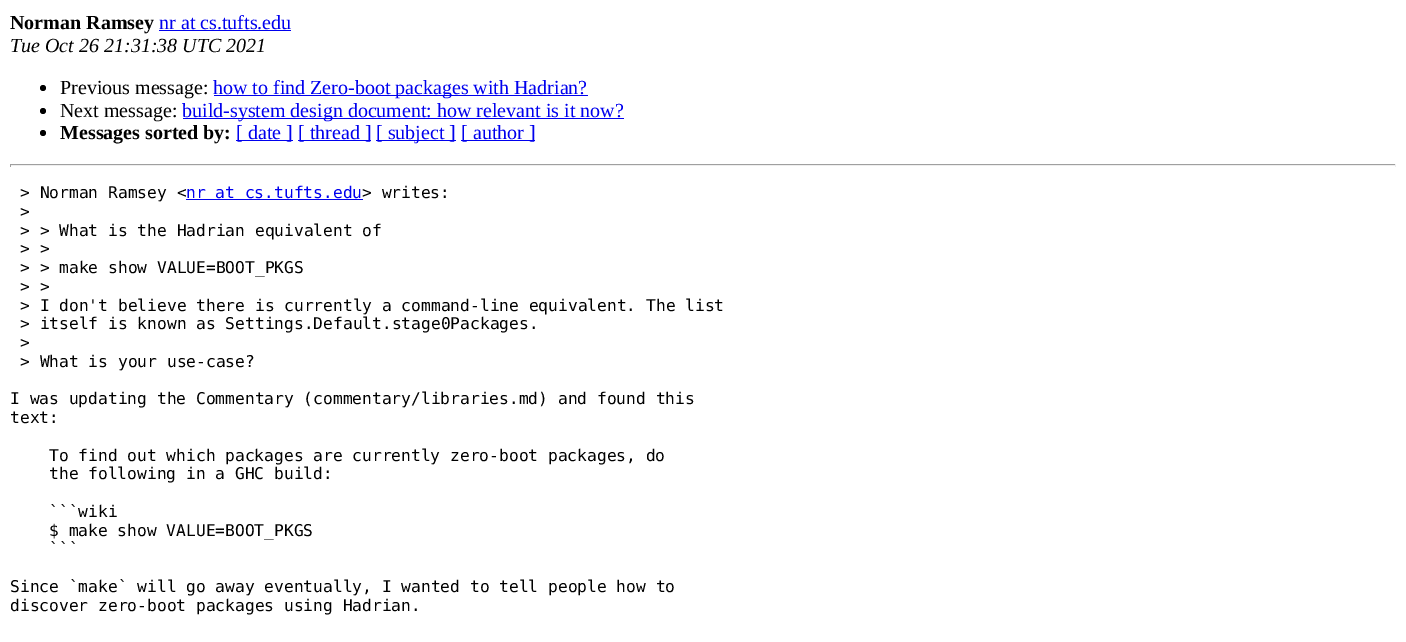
%!PS
<< /PageSize [1406 642] >> setpagedevice
/fl/fill load def
/co { dup -16 bitshift 255 div exch dup -8 bitshift 255 and 255 div exch 255 and 255 div setrgbcolor } def
/fn { [ exch dup neg 0 0 3 -1 roll 0 0 ] selectfont } def
/tx { co fn moveto show } def
/bx { co rectfill } def
/ci { newpath 0 360 arc closepath } def
0 642 translate 1 -1 scale
4 setmiterlimit
0 0 1406 642 16#FFFFFF bx
159 30 132 1 16#0000EE bx
16#000000 co
43 88 3 ci fl
214 95 374 1 16#0000EE bx
16#000000 co
43 111 3 ci fl
183 118 441 1 16#0000EE bx
16#000000 co
43 133 3 ci fl
236 140 57 1 16#0000EE bx
298 140 73 1 16#0000EE bx
376 140 80 1 16#0000EE bx
461 140 74 1 16#0000EE bx
10 164 1386 1 16#9F9F9F bx
1395 164 1 3 16#EEEEEE bx
10 165 1386 1 16#EEEEEE bx
10 164 1 3 16#9F9F9F bx
186 199 177 1 16#0000EE bx
(Norman Ramsey) 10 29 /LiberationSerif-Bold 20 16#000000 tx
(nr at cs.tufts.edu) 159 29 /LiberationSerif-Regular 20 16#0000EE tx
(Tue Oct 26 21:31:38 UTC 2021) 10 52 /LiberationSerif-Italic 20 16#000000 tx
(Previous message:) 60 94 /LiberationSerif-Regular 20 16#000000 tx
(how to find Zero-boot packages with Hadrian?) 213 94 /LiberationSerif-Regular 20 16#0000EE tx
(Next message:) 60 117 /LiberationSerif-Regular 20 16#000000 tx
(build-system design document: how relevant is it now?) 182 117 /LiberationSerif-Regular 20 16#0000EE tx
(Messages sorted by:) 60 139 /LiberationSerif-Bold 20 16#000000 tx
([ date ]) 236 139 /LiberationSerif-Regular 20 16#0000EE tx
([ thread ]) 298 139 /LiberationSerif-Regular 20 16#0000EE tx
([ subject ]) 376 139 /LiberationSerif-Regular 20 16#0000EE tx
([ author ]) 461 139 /LiberationSerif-Regular 20 16#0000EE tx
(> Norman Ramsey <) 20 198 /DejaVuSansMono-Regular 16.25 16#000000 tx
(nr at cs.tufts.edu) 186 198 /DejaVuSansMono-Regular 16.25 16#0000EE tx
(> writes:) 362 198 /DejaVuSansMono-Regular 16.25 16#000000 tx
(>) 20 217 /DejaVuSansMono-Regular 16.25 16#000000 tx
(> > What is the Hadrian equivalent of) 20 236 /DejaVuSansMono-Regular 16.25 16#000000 tx
(> >) 20 254 /DejaVuSansMono-Regular 16.25 16#000000 tx
(> > make show VALUE=BOOT_PKGS) 20 273 /DejaVuSansMono-Regular 16.25 16#000000 tx
(> >) 20 292 /DejaVuSansMono-Regular 16.25 16#000000 tx
(> I don't believe there is currently a command-line equivalent. The list) 20 311 /DejaVuSansMono-Regular 16.25 16#000000 tx
(> itself is known as Settings.Default.stage0Packages.) 20 329 /DejaVuSansMono-Regular 16.25 16#000000 tx
(>) 20 348 /DejaVuSansMono-Regular 16.25 16#000000 tx
(> What is your use-case?) 20 367 /DejaVuSansMono-Regular 16.25 16#000000 tx
(I was updating the Commentary \(commentary/libraries.md\) and found this) 10 404 /DejaVuSansMono-Regular 16.25 16#000000 tx
(text:) 10 423 /DejaVuSansMono-Regular 16.25 16#000000 tx
(To find out which packages are currently zero-boot packages, do) 49 461 /DejaVuSansMono-Regular 16.25 16#000000 tx
(the following in a GHC build:) 49 479 /DejaVuSansMono-Regular 16.25 16#000000 tx
(```wiki) 49 517 /DejaVuSansMono-Regular 16.25 16#000000 tx
($ make show VALUE=BOOT_PKGS) 49 536 /DejaVuSansMono-Regular 16.25 16#000000 tx
(```) 49 554 /DejaVuSansMono-Regular 16.25 16#000000 tx
(Since `make` will go away eventually, I wanted to tell people how to) 10 592 /DejaVuSansMono-Regular 16.25 16#000000 tx
(discover zero-boot packages using Hadrian.) 10 611 /DejaVuSansMono-Regular 16.25 16#000000 tx
showpage
